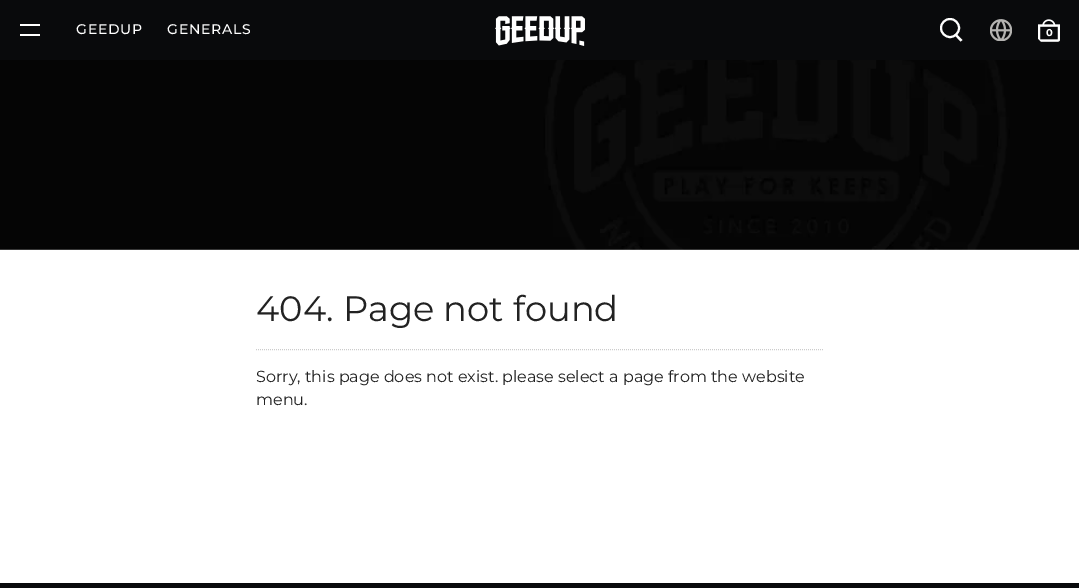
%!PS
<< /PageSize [1079 588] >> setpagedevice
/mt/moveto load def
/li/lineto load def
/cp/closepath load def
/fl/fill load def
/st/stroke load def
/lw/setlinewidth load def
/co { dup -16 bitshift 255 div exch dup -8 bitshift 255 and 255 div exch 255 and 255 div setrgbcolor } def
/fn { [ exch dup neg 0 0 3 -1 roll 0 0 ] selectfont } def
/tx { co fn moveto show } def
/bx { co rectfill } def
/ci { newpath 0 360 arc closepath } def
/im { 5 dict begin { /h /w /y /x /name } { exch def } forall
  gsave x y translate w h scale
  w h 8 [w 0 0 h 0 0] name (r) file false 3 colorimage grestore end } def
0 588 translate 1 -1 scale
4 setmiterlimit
0 0 1079 588 16#FFFFFF bx
0 0 1079 60 16#090A0C bx
20 24 20 2 16#FFFFFF bx
20 34 20 2 16#FFFFFF bx
(media/1.raw) 495 16 90 30 im
2 lw
950 28 9 ci st
956 33.5 mt 962.5 40 li 960.5 41.5 li 954.5 35 li cp fl
(media/2.raw) 990 19 22 22 im
(media/3.raw) 1038 19 22 23 im
(media/4.raw) 0 60 1079 190 im
16#CCCCCC co
1 lw
[1 1] 0 setdash
256 349.5 mt 824 349.5 li st
0 583 1079 5 16#090A0C bx
/Montserrat-Medium 14 fn
16#FFFFFF co
76 34 mt .75 0 (GEEDUP) ashow
167 34 mt .75 0 (GENERALS) ashow
(0) 1046 36 /Montserrat-Bold 10 16#FFFFFF tx
(404. Page not found) 256 321 /Montserrat-Regular 35.25 16#222222 tx
(Sorry, this page does not exist. please select a page from the website) 256 382 /Montserrat-Regular 16 16#222222 tx
(menu.) 256 405 /Montserrat-Regular 16 16#222222 tx
showpage
